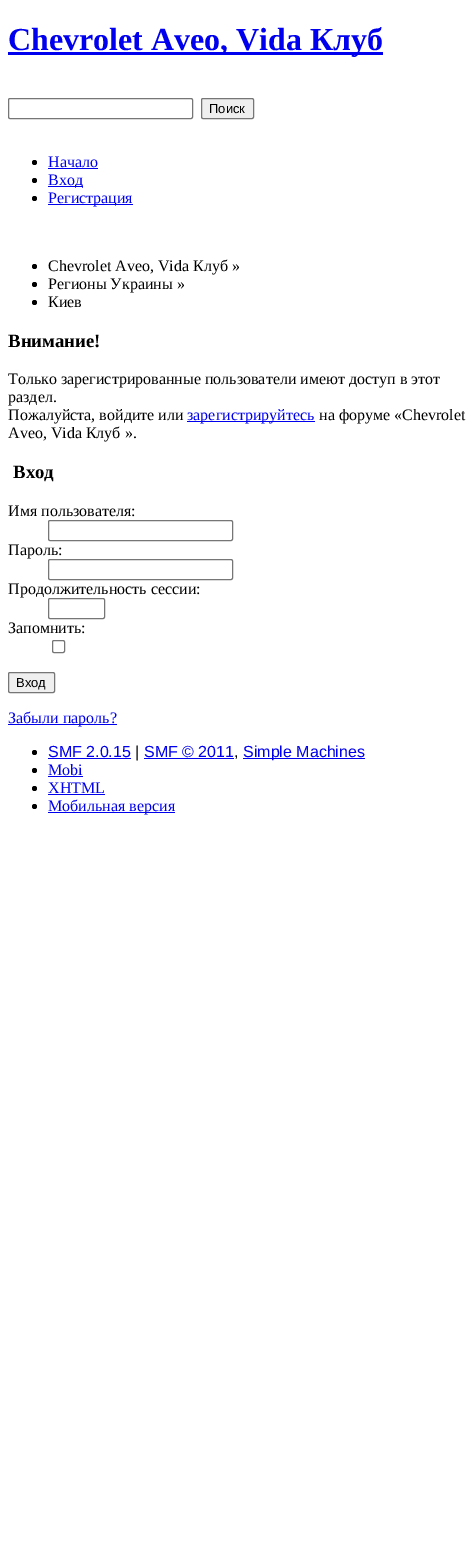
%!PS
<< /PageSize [475 1543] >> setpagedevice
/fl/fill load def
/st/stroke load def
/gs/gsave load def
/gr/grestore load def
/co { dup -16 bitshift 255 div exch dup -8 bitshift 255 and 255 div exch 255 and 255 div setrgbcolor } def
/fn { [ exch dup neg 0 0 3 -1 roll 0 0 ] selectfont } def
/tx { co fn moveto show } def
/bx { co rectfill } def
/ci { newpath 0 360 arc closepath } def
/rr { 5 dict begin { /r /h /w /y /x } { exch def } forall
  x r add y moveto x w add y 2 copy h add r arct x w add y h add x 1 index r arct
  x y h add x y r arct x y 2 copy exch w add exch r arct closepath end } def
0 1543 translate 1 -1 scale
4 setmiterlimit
0 0 475 1543 16#FFFFFF bx
8 52 375 3 16#0000EE bx
16#767676 co
8.5 98.5 184 20 1.5 rr st
16#EFEFEF co
201.5 98.5 52 20 1.5 rr gs fl gr
16#767676 co
st
16#000000 co
34.5 162.5 2.5 ci fl
48 168 50 1 16#0000EE bx
16#000000 co
34.5 180.5 2.5 ci fl
48 186 35 1 16#0000EE bx
16#000000 co
34.5 198.5 2.5 ci fl
48 204 85 1 16#0000EE bx
16#000000 co
34.5 266.5 2.5 ci fl
34.5 284.5 2.5 ci fl
34.5 302.5 2.5 ci fl
187 421 128 1 16#0000EE bx
16#767676 co
48.5 520.5 184 20 1.5 rr st
48.5 559.5 184 20 1.5 rr st
48.5 598.5 56 20 1.5 rr st
52.5 640.5 12 12 1.5 rr st
16#EFEFEF co
8.5 672.5 46 20 1.5 rr gs fl gr
16#767676 co
st
8 724 109 1 16#0000EE bx
16#000000 co
34.5 752.5 2.5 ci fl
48 758 83 1 16#0000EE bx
144 758 90 1 16#0000EE bx
243 758 122 1 16#0000EE bx
16#000000 co
34.5 770.5 2.5 ci fl
48 776 35 1 16#0000EE bx
16#000000 co
34.5 788.5 2.5 ci fl
48 794 57 1 16#0000EE bx
16#000000 co
34.5 806.5 2.5 ci fl
48 812 127 1 16#0000EE bx
(Chevrolet Aveo, Vida Клуб) 8 50 /LiberationSerif-Bold 32 16#0000EE tx
(Поиск) 209 113 /LiberationSans-Regular 13 16#000000 tx
(Начало) 48 167 /LiberationSerif-Regular 16 16#0000EE tx
(Вход) 48 185 /LiberationSerif-Regular 16 16#0000EE tx
(Регистрация) 48 203 /LiberationSerif-Regular 16 16#0000EE tx
(Chevrolet Aveo, Vida Клуб ») 48 271 /LiberationSerif-Regular 16 16#000000 tx
(Регионы Украины ») 48 289 /LiberationSerif-Regular 16 16#000000 tx
(Киев) 48 307 /LiberationSerif-Regular 16 16#000000 tx
(Внимание!) 8 347 /LiberationSerif-Bold 18.75 16#000000 tx
(Только зарегистрированные пользователи имеют доступ в этот) 8 384 /LiberationSerif-Regular 16 16#000000 tx
(раздел.) 8 402 /LiberationSerif-Regular 16 16#000000 tx
(Пожалуйста, войдите или) 8 420 /LiberationSerif-Regular 16 16#000000 tx
(зарегистрируйтесь) 187 420 /LiberationSerif-Regular 16 16#0000EE tx
(на форуме «Chevrolet) 319 420 /LiberationSerif-Regular 16 16#000000 tx
(Aveo, Vida Клуб ».) 8 438 /LiberationSerif-Regular 16 16#000000 tx
(Вход) 13 478 /LiberationSerif-Bold 18.75 16#000000 tx
(Имя пользователя:) 8 516 /LiberationSerif-Regular 16 16#000000 tx
(Пароль:) 8 555 /LiberationSerif-Regular 16 16#000000 tx
(Продолжительность сессии:) 8 594 /LiberationSerif-Regular 16 16#000000 tx
(Запомнить:) 8 633 /LiberationSerif-Regular 16 16#000000 tx
(Вход) 16 687 /LiberationSans-Regular 13 16#000000 tx
(Забыли пароль?) 8 723 /LiberationSerif-Regular 16 16#0000EE tx
(SMF 2.0.15) 48 757 /LiberationSans-Regular 16 16#0000EE tx
(|) 135 757 /LiberationSans-Regular 16 16#000000 tx
(SMF © 2011) 144 757 /LiberationSans-Regular 16 16#0000EE tx
(Simple Machines) 243 757 /LiberationSans-Regular 16 16#0000EE tx
(,) 234 757 /LiberationSans-Regular 16 16#000000 tx
(Mobi) 48 775 /LiberationSerif-Regular 16 16#0000EE tx
(XHTML) 48 793 /LiberationSerif-Regular 16 16#0000EE tx
(Мобильная версия) 48 811 /LiberationSerif-Regular 16 16#0000EE tx
showpage
